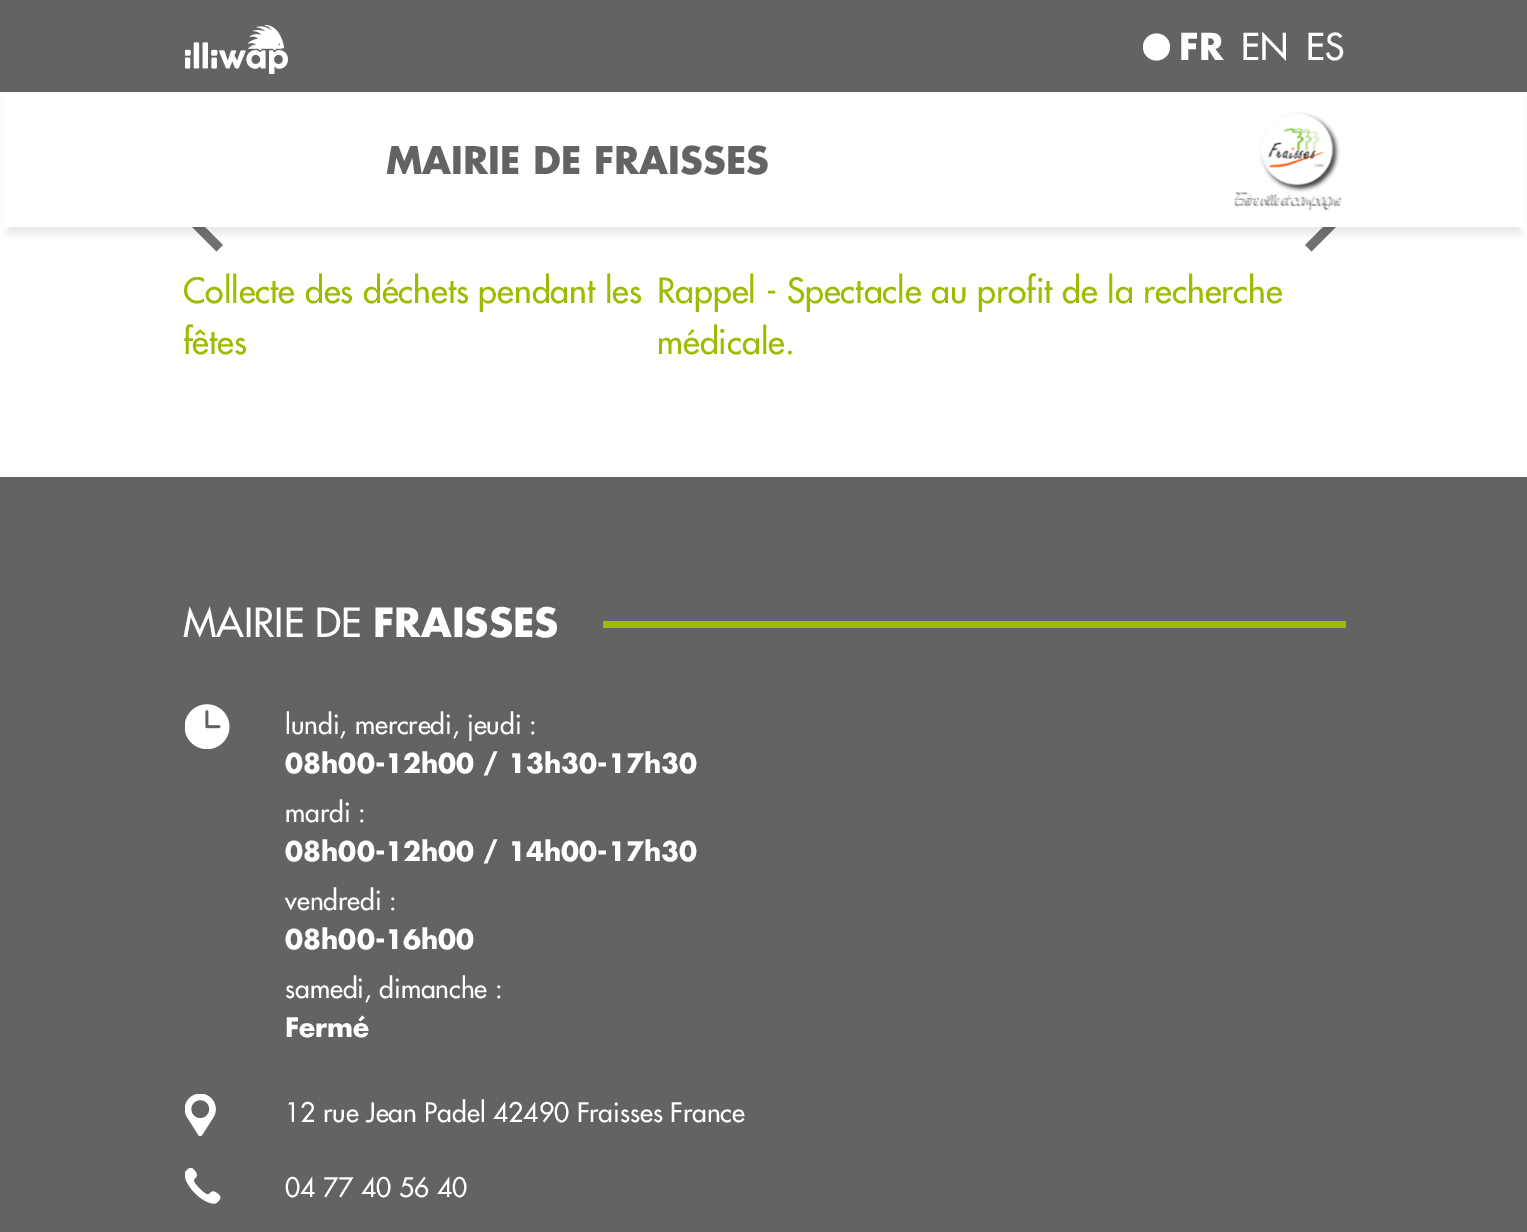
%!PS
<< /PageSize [1527 1232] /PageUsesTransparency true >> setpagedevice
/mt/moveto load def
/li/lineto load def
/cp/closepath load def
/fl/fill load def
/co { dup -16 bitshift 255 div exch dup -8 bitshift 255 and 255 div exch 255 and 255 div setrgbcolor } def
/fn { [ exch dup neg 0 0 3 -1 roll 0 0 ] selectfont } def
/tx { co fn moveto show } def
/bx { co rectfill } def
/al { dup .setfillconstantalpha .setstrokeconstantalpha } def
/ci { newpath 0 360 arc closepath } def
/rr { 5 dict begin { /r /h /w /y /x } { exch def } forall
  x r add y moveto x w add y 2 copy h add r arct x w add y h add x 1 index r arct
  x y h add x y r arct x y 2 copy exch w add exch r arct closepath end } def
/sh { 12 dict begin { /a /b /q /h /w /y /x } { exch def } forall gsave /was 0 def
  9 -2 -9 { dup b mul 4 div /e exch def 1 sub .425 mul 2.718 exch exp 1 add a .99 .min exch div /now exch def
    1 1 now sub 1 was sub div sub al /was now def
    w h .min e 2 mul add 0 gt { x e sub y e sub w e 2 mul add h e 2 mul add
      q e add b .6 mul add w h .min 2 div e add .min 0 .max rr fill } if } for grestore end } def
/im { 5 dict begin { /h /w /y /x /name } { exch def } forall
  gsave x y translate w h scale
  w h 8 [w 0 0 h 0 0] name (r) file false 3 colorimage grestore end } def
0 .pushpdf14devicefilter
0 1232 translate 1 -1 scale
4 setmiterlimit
0 0 1527 1232 16#FFFFFF bx
16#707070 co
216.5 251.5 mt 184.5 219.5 li 191 213 li 223 245 li cp fl
1343.5 219.5 mt 1311.5 251.5 li 1305 245 li 1337 213 li cp fl
16#000000 co
7 20 1514 214 0 3.5 .08 sh
3 92 1522 135 16#FFFFFF bx
0 0 1527 92 16#646363 bx
(media/1.raw) 185 25 103 49 im
16#FFFFFF co
1156.5 47 13.5 ci fl
(media/2.raw) 1234 112 108 98 im
0 477 1527 755 16#646363 bx
603 621 743 7 16#9FBA00 bx
(media/3.raw) 185 704 45 45 im
(media/4.raw) 185 1094 31 42 im
(media/5.raw) 185 1168 36 36 im
(FR) 1179 60 /Futura-Bold 36 16#FFFFFF tx
(EN) 1241 60 /Futura-Regular 36 16#FFFFFF tx
(ES) 1306 60 /Futura-Regular 36 16#FFFFFF tx
(MAIRIE DE FRAISSES) 386 174 /Futura-Bold 37 16#646363 tx
(Collecte des déchets pendant les) 183 303 /Futura-Regular 33.9 16#9FBA00 tx
(fêtes) 183 354 /Futura-Regular 33.9 16#9FBA00 tx
(Rappel - Spectacle au profit de la recherche) 657 303 /Futura-Regular 33.9 16#9FBA00 tx
(médicale.) 657 354 /Futura-Regular 33.9 16#9FBA00 tx
(MAIRIE DE) 183 637 /Futura-Regular 39.25 16#FFFFFF tx
(FRAISSES) 373 637 /Futura-Bold 39.25 16#FFFFFF tx
(lundi, mercredi, jeudi :) 285 734 /Futura-Regular 26.3 16#FFFFFF tx
(08h00-12h00 / 13h30-17h30) 285 773 /Futura-Bold 26.3 16#FFFFFF tx
(mardi :) 285 822 /Futura-Regular 26.3 16#FFFFFF tx
(08h00-12h00 / 14h00-17h30) 285 861 /Futura-Bold 26.3 16#FFFFFF tx
(vendredi :) 285 910 /Futura-Regular 26.3 16#FFFFFF tx
(08h00-16h00) 285 949 /Futura-Bold 26.3 16#FFFFFF tx
(samedi, dimanche :) 285 998 /Futura-Regular 26.3 16#FFFFFF tx
(Fermé) 285 1037 /Futura-Bold 26.3 16#FFFFFF tx
(12 rue Jean Padel 42490 Fraisses France) 285 1122 /Futura-Regular 26.3 16#FFFFFF tx
(04 77 40 56 40) 285 1197 /Futura-Regular 26.3 16#FFFFFF tx
.poppdf14devicefilter showpage
